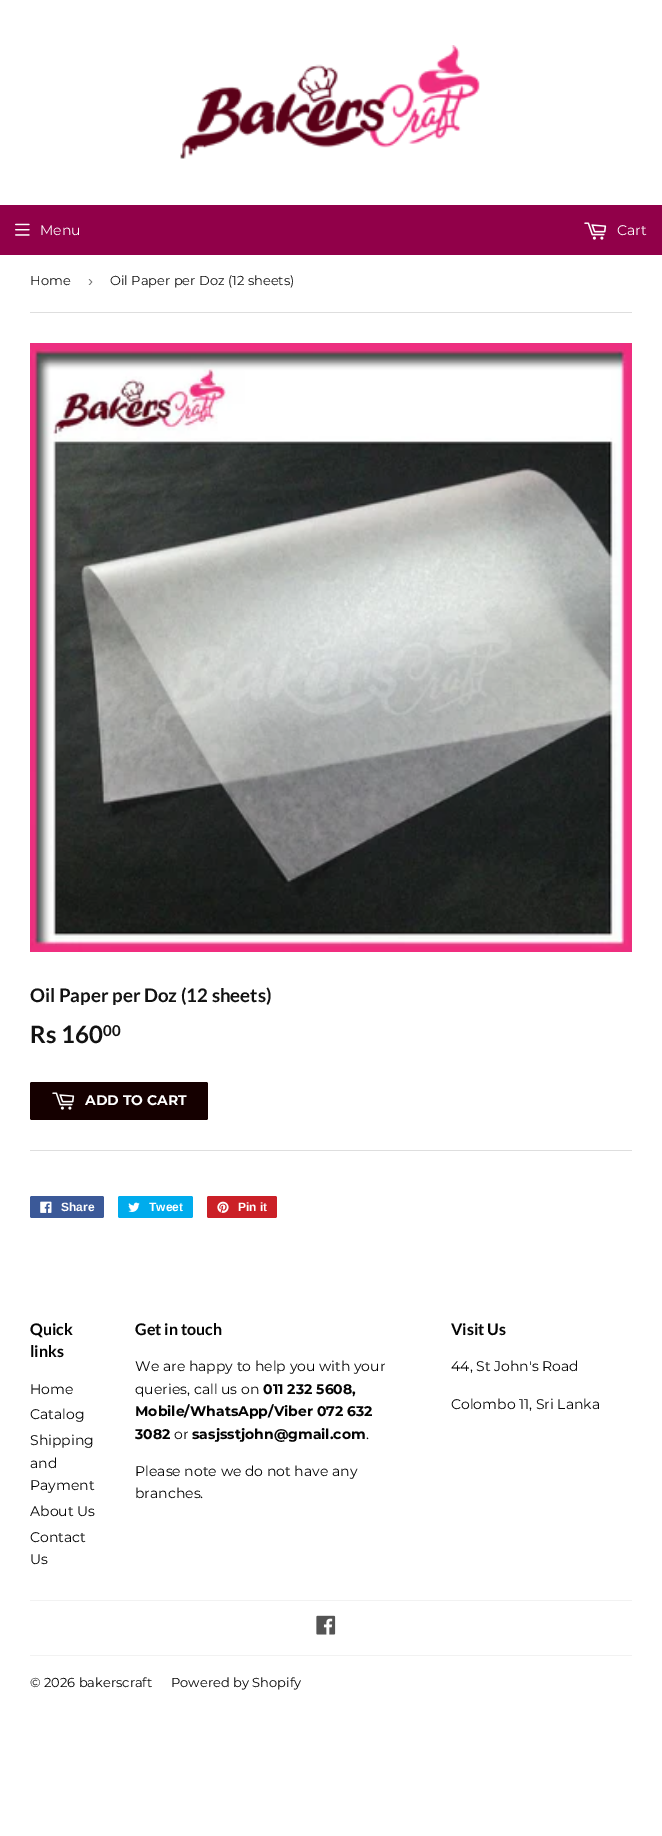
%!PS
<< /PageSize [662 1836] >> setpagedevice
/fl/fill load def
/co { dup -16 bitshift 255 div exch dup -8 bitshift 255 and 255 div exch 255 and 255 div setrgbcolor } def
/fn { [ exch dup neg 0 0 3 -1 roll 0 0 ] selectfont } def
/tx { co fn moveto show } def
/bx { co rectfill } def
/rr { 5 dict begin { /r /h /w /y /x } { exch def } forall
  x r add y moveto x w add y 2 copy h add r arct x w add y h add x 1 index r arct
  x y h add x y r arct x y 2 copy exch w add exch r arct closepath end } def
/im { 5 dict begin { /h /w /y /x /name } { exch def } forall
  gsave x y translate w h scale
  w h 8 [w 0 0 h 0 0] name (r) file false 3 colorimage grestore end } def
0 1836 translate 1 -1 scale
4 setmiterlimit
0 0 662 1836 16#FFFFFF bx
(media/1.raw) 180 45 300 114 im
0 205 662 50 16#910049 bx
(media/2.raw) 15 223 15 13 im
(media/3.raw) 584 222 23 18 im
30 312 602 1 16#DEDEDE bx
(media/4.raw) 30 343 602 609 im
16#150000 co
30 1082 178 38 2 rr fl
(media/5.raw) 52 1092 23 18 im
30 1150 602 1 16#DEDEDE bx
16#3B5998 co
30 1196 74 22 2 rr fl
(media/6.raw) 40 1201 12 12 im
16#00ACED co
118 1196 75 22 2 rr fl
(media/7.raw) 128 1202 12 10 im
16#CB2027 co
207 1196 70 22 2 rr fl
(media/8.raw) 217 1201 12 12 im
30 1600 602 1 16#F2F2F2 bx
(media/9.raw) 316 1615 20 20 im
30 1655 602 1 16#F2F2F2 bx
(Menu) 40 235 /Montserrat-Regular 14 16#FFFFFF tx
(Cart) 617 235 /Montserrat-Regular 14 16#FFFFFF tx
(Home) 30 285 /Montserrat-Regular 13 16#121212 tx
(›) 88 286 /LiberationSans-Regular 15 16#767676 tx
(Oil Paper per Doz \(12 sheets\)) 110 285 /Montserrat-Regular 13 16#121212 tx
(Oil Paper per Doz \(12 sheets\)) 30 1002 /Lato-Bold 18.7 16#121212 tx
(Rs 160) 30 1043 /Lato-Bold 24 16#121212 tx
(00) 103 1036 /Lato-Bold 15 16#121212 tx
(ADD TO CART) 85 1105 /Montserrat-Bold 14 16#FFFFFF tx
(Share) 61 1211 /LiberationSans-Bold 12 16#FFFFFF tx
(Tweet) 149 1211 /LiberationSans-Bold 12 16#FFFFFF tx
(Pin it) 238 1211 /LiberationSans-Bold 12 16#FFFFFF tx
(Quick) 30 1335 /Lato-Bold 16 16#040404 tx
(links) 30 1357 /Lato-Bold 16 16#040404 tx
(Home) 30 1394 /Montserrat-Regular 14 16#040404 tx
(Catalog) 30 1419 /Montserrat-Regular 14 16#040404 tx
(Shipping) 30 1445 /Montserrat-Regular 14 16#040404 tx
(and) 30 1468 /Montserrat-Regular 14 16#040404 tx
(Payment) 30 1490 /Montserrat-Regular 14 16#040404 tx
(About Us) 30 1516 /Montserrat-Regular 14 16#040404 tx
(Contact) 30 1542 /Montserrat-Regular 14 16#040404 tx
(Us) 30 1564 /Montserrat-Regular 14 16#040404 tx
(Get in touch) 135 1335 /Lato-Bold 16 16#040404 tx
(We are happy to help you with your) 135 1371 /Montserrat-Regular 14 16#040404 tx
(queries, call us on) 135 1394 /Montserrat-Regular 14 16#040404 tx
(011 232 5608,) 263 1394 /Montserrat-Bold 14 16#040404 tx
(Mobile/WhatsApp/Viber 072 632) 135 1416 /Montserrat-Bold 14 16#040404 tx
(3082) 135 1439 /Montserrat-Bold 14 16#040404 tx
(or) 174 1439 /Montserrat-Regular 14 16#040404 tx
(sasjsstjohn@gmail.com) 192 1439 /Montserrat-Bold 14 16#040404 tx
(.) 366 1439 /Montserrat-Regular 14 16#040404 tx
(Please note we do not have any) 135 1476 /Montserrat-Regular 14 16#040404 tx
(branches.) 135 1498 /Montserrat-Regular 14 16#040404 tx
(Visit Us) 451 1335 /Lato-Bold 16 16#040404 tx
(44, St John's Road) 451 1371 /Montserrat-Regular 14 16#040404 tx
(Colombo 11, Sri Lanka) 451 1409 /Montserrat-Regular 14 16#040404 tx
(© 2026 bakerscraft) 30 1687 /Montserrat-Regular 13 16#040404 tx
(Powered by Shopify) 171 1687 /Montserrat-Regular 13 16#040404 tx
showpage
